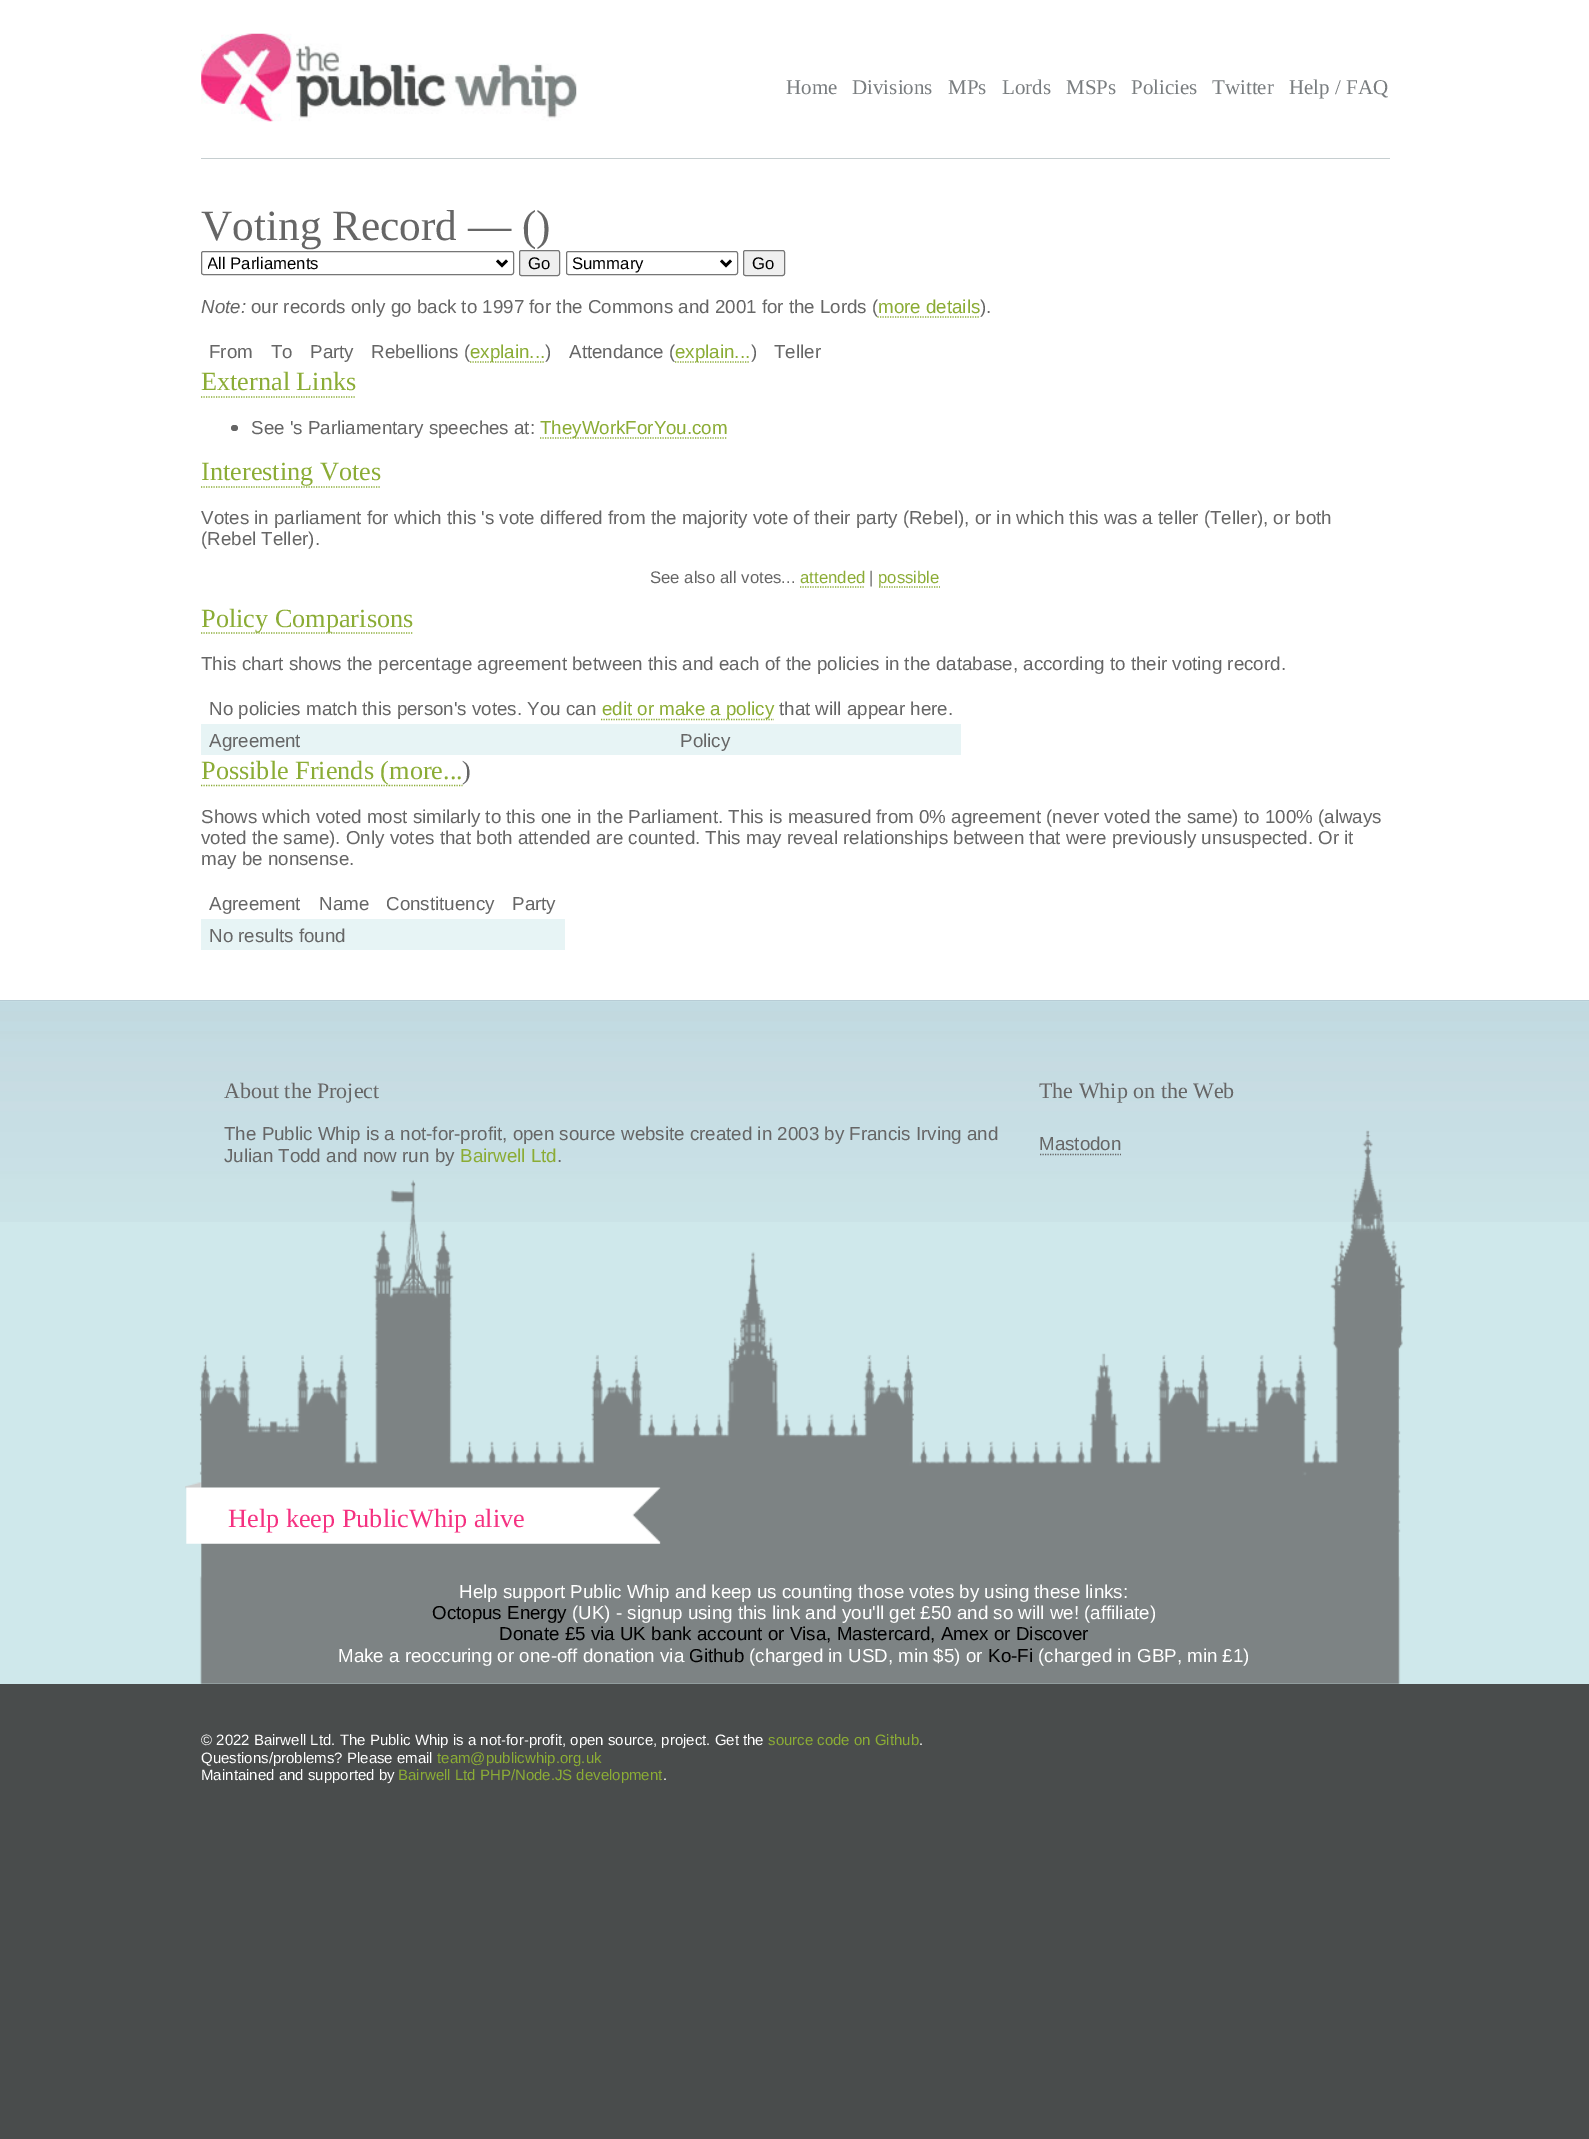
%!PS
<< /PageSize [1589 2139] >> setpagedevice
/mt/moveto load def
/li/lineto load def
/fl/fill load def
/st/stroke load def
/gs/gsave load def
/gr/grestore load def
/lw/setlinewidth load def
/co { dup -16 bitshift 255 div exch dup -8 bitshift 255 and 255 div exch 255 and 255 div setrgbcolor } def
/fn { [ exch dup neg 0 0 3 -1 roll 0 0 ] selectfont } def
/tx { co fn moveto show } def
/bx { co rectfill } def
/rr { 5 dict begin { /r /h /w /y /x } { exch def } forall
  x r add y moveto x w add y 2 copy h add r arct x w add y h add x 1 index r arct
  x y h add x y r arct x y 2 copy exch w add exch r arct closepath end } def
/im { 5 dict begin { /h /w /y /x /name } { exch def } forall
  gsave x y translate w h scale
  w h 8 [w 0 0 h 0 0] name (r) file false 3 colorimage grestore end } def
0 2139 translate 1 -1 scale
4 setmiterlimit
0 0 1589 2139 16#494C4C bx
0 0 1589 1000 16#FFFFFF bx
201 158 1189 1 16#C6CED0 bx
(media/1.raw) 201 33 376 89 im
16#767676 co
201.5 251.5 312 23 2 rr st
16#000000 co
2.5 lw
497 260.5 mt 502 265.5 li 507 260.5 li st
16#EFEFEF co
519.5 250.5 40 25 2 rr gs fl gr
16#767676 co
1 lw
st
566.5 251.5 171 23 2 rr st
16#000000 co
2.5 lw
721 260.5 mt 726 265.5 li 731 260.5 li st
16#EFEFEF co
743.5 250.5 41 25 2 rr gs fl gr
16#767676 co
1 lw
st
16#8BAC35 co
1.2 lw
[1.25 1.25] 0 setdash
201 397 mt 356 397 li st
16#666666 co
231 425 7 6 3 rr fl
16#8BAC35 co
540 438 mt 727.5 438 li st
201 487 mt 381 487 li st
800 587 mt 865 587 li st
879 587 mt 940 587 li st
201 633 mt 412.5 633 li st
601 719.5 mt 774 719.5 li st
201 724 760 31 16#E7F4F5 bx
16#8BAC35 co
201 785.5 mt 389 785.5 li st
389 785.5 mt 462.5 785.5 li st
201 919 364 31 16#E7F4F5 bx
0 1001 1589 683 16#CFE8EB bx
(media/2.raw) 0 1001 1589 221 im
0 1000 1589 1 16#B7CCD5 bx
(media/3.raw) 185 1130 1220 554 im
16#666666 co
1040 1154.5 mt 1121 1154.5 li st
(Home) 786 94 /LiberationSerif-Regular 21 16#797D7F tx
(Divisions) 852 94 /LiberationSerif-Regular 21 16#797D7F tx
(MPs) 948 94 /LiberationSerif-Regular 21 16#797D7F tx
(Lords) 1002 94 /LiberationSerif-Regular 21 16#797D7F tx
(MSPs) 1066 94 /LiberationSerif-Regular 21 16#797D7F tx
(Policies) 1131 94 /LiberationSerif-Regular 21 16#797D7F tx
(Twitter) 1212 94 /LiberationSerif-Regular 21 16#797D7F tx
(Help / FAQ) 1289 94 /LiberationSerif-Regular 21 16#797D7F tx
(Voting Record — \(\)) 201 240 /LiberationSerif-Regular 43.25 16#666666 tx
gs
208 253 285 21 rectclip
(All Parliaments) 207 269 /LiberationSans-Regular 16.75 16#000000 tx
gr
(Go) 528 269 /LiberationSans-Regular 16.75 16#000000 tx
(Summary) 572 269 /LiberationSans-Regular 16.75 16#000000 tx
(Go) 752 269 /LiberationSans-Regular 16.75 16#000000 tx
(Note:) 201 313 /LiberationSans-Italic 18.75 16#666666 tx
(our records only go back to 1997 for the Commons and 2001 for the Lords \() 251 313 /LiberationSans-Regular 18.75 16#666666 tx
(more details) 878 313 /LiberationSans-Regular 18.75 16#8BAC35 tx
877.5 317 mt 980 317 li st
(\).) 980 313 /LiberationSans-Regular 18.75 16#666666 tx
(From) 209 358 /LiberationSans-Regular 18.75 16#666666 tx
(To) 271 358 /LiberationSans-Regular 18.75 16#666666 tx
(Party) 310 358 /LiberationSans-Regular 18.75 16#666666 tx
(Rebellions \() 371 358 /LiberationSans-Regular 18.75 16#666666 tx
16#8BAC35 co
470 362 mt 545 362 li st
(explain...) 470 358 /LiberationSans-Regular 18.75 16#8BAC35 tx
(\)) 545 358 /LiberationSans-Regular 18.75 16#666666 tx
(Attendance \() 569 358 /LiberationSans-Regular 18.75 16#666666 tx
16#8BAC35 co
675 362 mt 750 362 li st
(explain...) 675 358 /LiberationSans-Regular 18.75 16#8BAC35 tx
(\)) 751 358 /LiberationSans-Regular 18.75 16#666666 tx
(Teller) 774 358 /LiberationSans-Regular 18.75 16#666666 tx
(External Links) 201 390 /LiberationSerif-Regular 26.25 16#8BAC35 tx
(See 's Parliamentary speeches at:) 251 434 /LiberationSans-Regular 18.75 16#666666 tx
(TheyWorkForYou.com) 540 434 /LiberationSans-Regular 18.75 16#8BAC35 tx
(Interesting Votes) 201 480 /LiberationSerif-Regular 26.25 16#8BAC35 tx
(Votes in parliament for which this 's vote differed from the majority vote of their party \(Rebel\), or in which this was a teller \(Teller\), or both) 201 524 /LiberationSans-Regular 18.75 16#666666 tx
(\(Rebel Teller\).) 201 545 /LiberationSans-Regular 18.75 16#666666 tx
(See also all votes...) 650 583 /LiberationSans-Regular 16.75 16#666666 tx
(attended) 800 583 /LiberationSans-Regular 16.75 16#8BAC35 tx
(|) 869 583 /LiberationSans-Regular 16.75 16#666666 tx
(possible) 878 583 /LiberationSans-Regular 16.75 16#8BAC35 tx
(Policy Comparisons) 201 627 /LiberationSerif-Regular 26.25 16#8BAC35 tx
(This chart shows the percentage agreement between this and each of the policies in the database, according to their voting record.) 201 670 /LiberationSans-Regular 18.75 16#666666 tx
(No policies match this person's votes. You can) 209 715 /LiberationSans-Regular 18.75 16#666666 tx
(edit or make a policy) 602 715 /LiberationSans-Regular 18.75 16#8BAC35 tx
(that will appear here.) 779 715 /LiberationSans-Regular 18.75 16#666666 tx
(Agreement) 209 747 /LiberationSans-Regular 18.75 16#666666 tx
(Policy) 680 747 /LiberationSans-Regular 18.75 16#666666 tx
(Possible Friends \(more...) 201 779 /LiberationSerif-Regular 26.25 16#8BAC35 tx
(\)) 462 779 /LiberationSerif-Regular 26.25 16#666666 tx
(Shows which voted most similarly to this one in the Parliament. This is measured from 0% agreement \(never voted the same\) to 100% \(always) 201 823 /LiberationSans-Regular 18.75 16#666666 tx
(voted the same\). Only votes that both attended are counted. This may reveal relationships between that were previously unsuspected. Or it) 201 844 /LiberationSans-Regular 18.75 16#666666 tx
(may be nonsense.) 201 865 /LiberationSans-Regular 18.75 16#666666 tx
(Agreement) 209 910 /LiberationSans-Regular 18.75 16#666666 tx
(Name) 319 910 /LiberationSans-Regular 18.75 16#666666 tx
(Constituency) 386 910 /LiberationSans-Regular 18.75 16#666666 tx
(Party) 512 910 /LiberationSans-Regular 18.75 16#666666 tx
(No results found) 209 942 /LiberationSans-Regular 18.75 16#666666 tx
(About the Project) 224 1098 /LiberationSerif-Regular 22 16#666666 tx
(The Public Whip is a not-for-profit, open source website created in 2003 by Francis Irving and) 224 1140 /LiberationSans-Regular 18.75 16#666666 tx
(Julian Todd and now run by) 224 1162 /LiberationSans-Regular 18.75 16#666666 tx
(Bairwell Ltd) 460 1162 /LiberationSans-Regular 18.75 16#8BAC35 tx
(.) 557 1162 /LiberationSans-Regular 18.75 16#666666 tx
(The Whip on the Web) 1039 1098 /LiberationSerif-Regular 22 16#666666 tx
(Mastodon) 1039 1150 /LiberationSans-Regular 18.75 16#666666 tx
(Help keep PublicWhip alive) 228 1527 /LiberationSerif-Regular 26.25 16#F53181 tx
(Help support Public Whip and keep us counting those votes by using these links:) 459 1598 /LiberationSans-Regular 18.75 16#FFFFFF tx
(Octopus Energy) 432 1619 /LiberationSans-Regular 18.75 16#000000 tx
(\(UK\) - signup using this link and you'll get £50 and so will we! \(affiliate\)) 572 1619 /LiberationSans-Regular 18.75 16#FFFFFF tx
(Donate £5 via UK bank account or Visa, Mastercard, Amex or Discover) 499 1640 /LiberationSans-Regular 18.75 16#000000 tx
(Make a reoccuring or one-off donation via) 338 1662 /LiberationSans-Regular 18.75 16#FFFFFF tx
(Github) 689 1662 /LiberationSans-Regular 18.75 16#000000 tx
(\(charged in USD, min $5\) or) 749 1662 /LiberationSans-Regular 18.75 16#FFFFFF tx
(Ko-Fi) 988 1662 /LiberationSans-Regular 18.75 16#000000 tx
(\(charged in GBP, min £1\)) 1038 1662 /LiberationSans-Regular 18.75 16#FFFFFF tx
(© 2022 Bairwell Ltd. The Public Whip is a not-for-profit, open source, project. Get the) 201 1745 /LiberationSans-Regular 15 16#FFFFFF tx
(source code on Github) 768 1745 /LiberationSans-Regular 15 16#8BAC35 tx
(.) 919 1745 /LiberationSans-Regular 15 16#FFFFFF tx
(Questions/problems? Please email) 201 1763 /LiberationSans-Regular 15 16#FFFFFF tx
(team@publicwhip.org.uk) 437 1763 /LiberationSans-Regular 15 16#8BAC35 tx
(Maintained and supported by) 201 1780 /LiberationSans-Regular 15 16#FFFFFF tx
(Bairwell Ltd PHP/Node.JS development) 398 1780 /LiberationSans-Regular 15 16#8BAC35 tx
(.) 663 1780 /LiberationSans-Regular 15 16#FFFFFF tx
showpage
